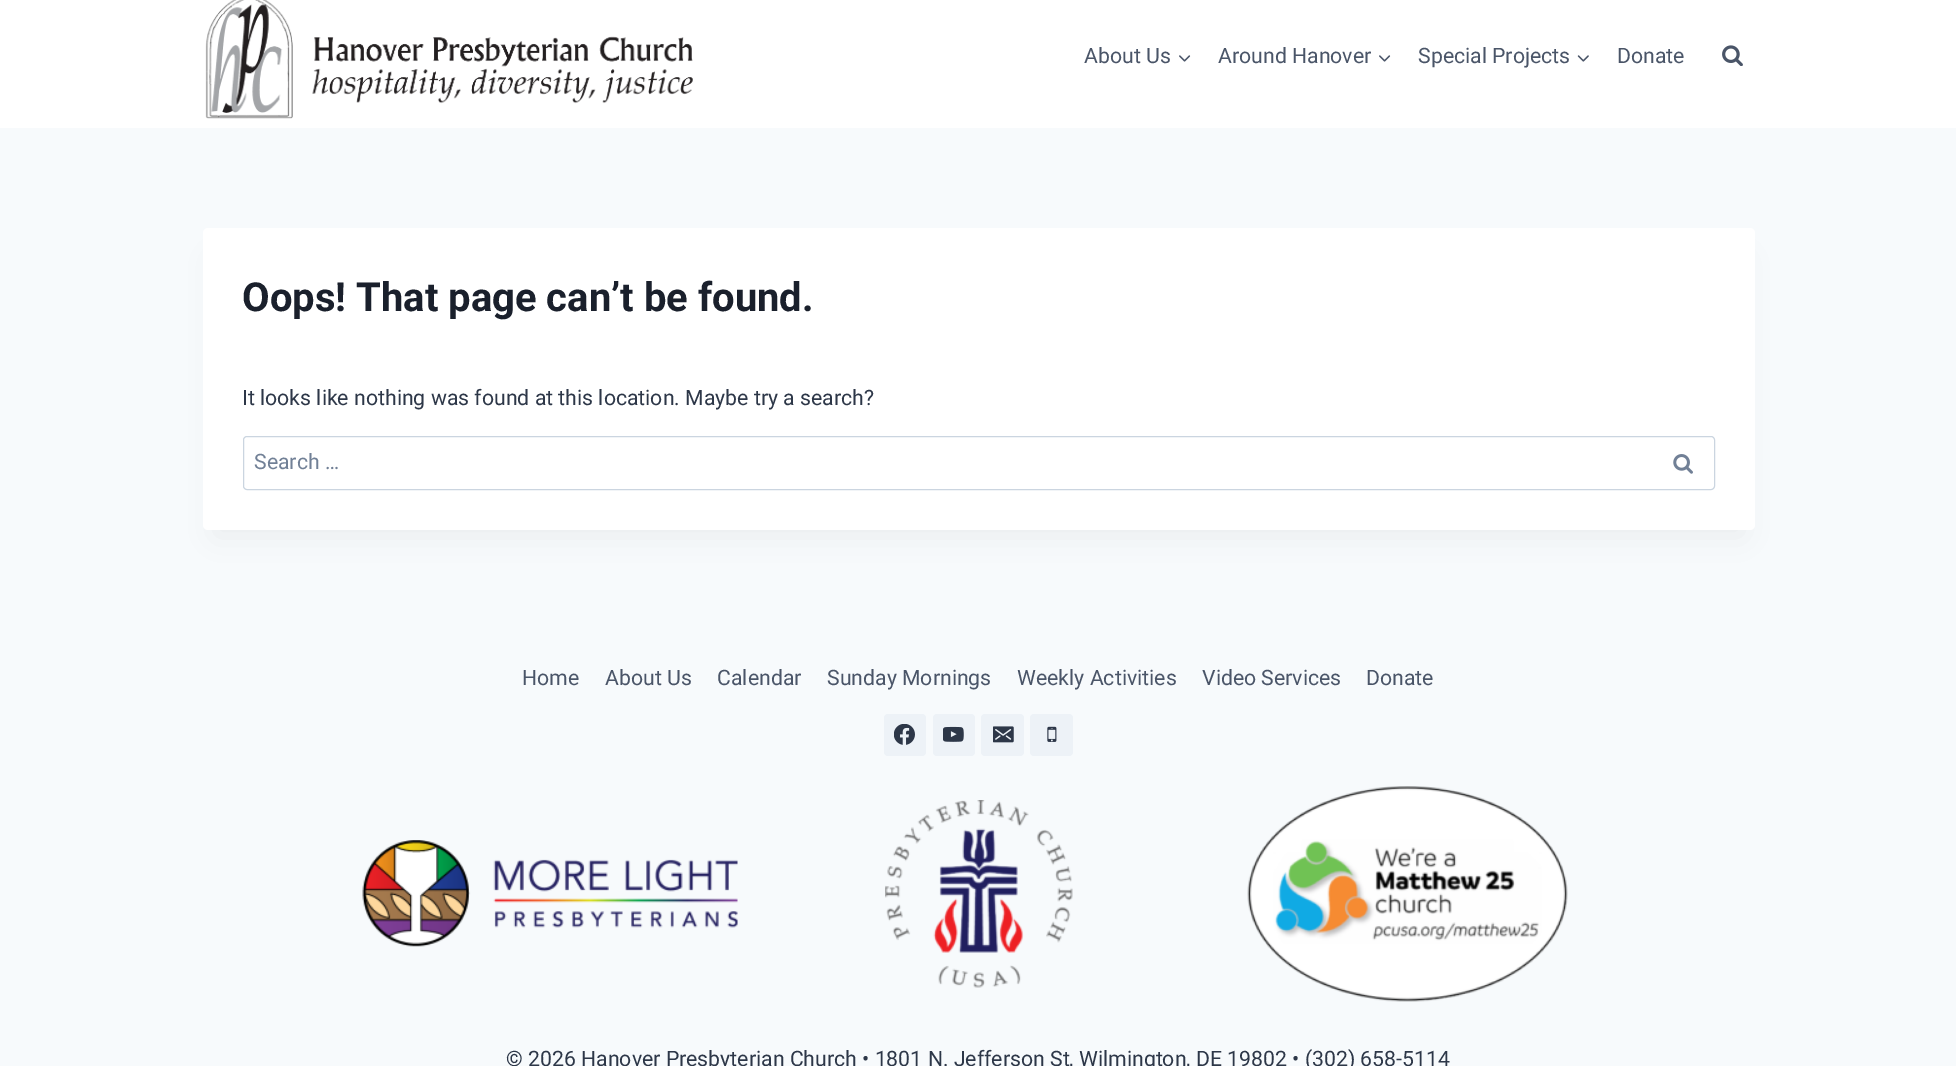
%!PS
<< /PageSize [1956 1066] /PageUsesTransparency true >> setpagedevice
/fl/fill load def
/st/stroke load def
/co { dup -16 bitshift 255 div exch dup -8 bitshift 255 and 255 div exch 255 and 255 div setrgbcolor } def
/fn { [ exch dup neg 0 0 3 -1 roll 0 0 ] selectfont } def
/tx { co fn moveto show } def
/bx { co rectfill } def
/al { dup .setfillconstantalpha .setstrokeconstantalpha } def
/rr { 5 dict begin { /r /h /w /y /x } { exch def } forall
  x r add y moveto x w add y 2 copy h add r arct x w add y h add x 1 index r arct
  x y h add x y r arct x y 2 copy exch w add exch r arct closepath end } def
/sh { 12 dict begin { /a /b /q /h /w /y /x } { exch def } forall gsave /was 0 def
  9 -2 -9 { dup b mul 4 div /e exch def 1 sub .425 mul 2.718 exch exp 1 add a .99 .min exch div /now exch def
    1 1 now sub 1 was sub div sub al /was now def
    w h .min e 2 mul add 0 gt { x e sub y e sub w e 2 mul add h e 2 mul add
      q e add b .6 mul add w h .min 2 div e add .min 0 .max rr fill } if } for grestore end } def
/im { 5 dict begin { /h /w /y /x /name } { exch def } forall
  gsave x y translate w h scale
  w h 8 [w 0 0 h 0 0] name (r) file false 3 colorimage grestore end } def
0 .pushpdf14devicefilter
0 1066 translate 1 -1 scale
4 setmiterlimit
0 0 1956 1066 16#F7FAFC bx
0 0 1956 128 16#FFFFFF bx
(media/1.raw) 205 0 488 119 im
(media/2.raw) 1179 55 12 7 im
(media/2.raw) 1379 55 12 7 im
(media/3.raw) 1577 55 12 7 im
(media/4.raw) 1722 45 21 21 im
16#000000 co
215 259 1528 277 0 15.5 .05 sh
16#FFFFFF co
203 228 1552 302 5 rr fl
16#CBD5E0 co
243.5 436.5 1471 53 3.5 rr st
(media/5.raw) 1673 454 20 20 im
16#EDF2F7 co
884 714 42 42 4 rr fl
(media/6.raw) 894 724 21 21 im
933 714 42 42 4 rr fl
(media/7.raw) 943 726 21 16 im
981 714 43 42 4 rr fl
(media/8.raw) 993 726 21 17 im
1030 714 43 42 4 rr fl
(media/9.raw) 1047 726 10 16 im
(media/10.raw) 362 840 376 107 im
(media/11.raw) 885 800 188 188 im
(media/12.raw) 1247 786 321 216 im
(About Us) 1084 63 /Roboto-Regular 21.25 16#4A5568 tx
(Around Hanover) 1218 63 /Roboto-Regular 21.25 16#4A5568 tx
(Special Projects) 1418 63 /Roboto-Regular 21.25 16#4A5568 tx
(Donate) 1617 63 /Roboto-Regular 21.25 16#4A5568 tx
(Oops! That page can’t be found.) 242 311 /Roboto-Bold 40 16#1A202C tx
(It looks like nothing was found at this location. Maybe try a search?) 242 405 /Roboto-Regular 21.25 16#2D3748 tx
(Search …) 254 469 /Roboto-Regular 21.25 16#718096 tx
(Home) 522 685 /Roboto-Regular 21.25 16#4A5568 tx
(About Us) 605 685 /Roboto-Regular 21.25 16#4A5568 tx
(Calendar) 717 685 /Roboto-Regular 21.25 16#4A5568 tx
(Sunday Mornings) 827 685 /Roboto-Regular 21.25 16#4A5568 tx
(Weekly Activities) 1017 685 /Roboto-Regular 21.25 16#4A5568 tx
(Video Services) 1202 685 /Roboto-Regular 21.25 16#4A5568 tx
(Donate) 1366 685 /Roboto-Regular 21.25 16#4A5568 tx
(© 2026 Hanover Presbyterian Church • 1801 N. Jefferson St, Wilmington, DE 19802 • \(302\) 658-5114) 506 1066 /Roboto-Regular 21.25 16#2D3748 tx
.poppdf14devicefilter showpage
